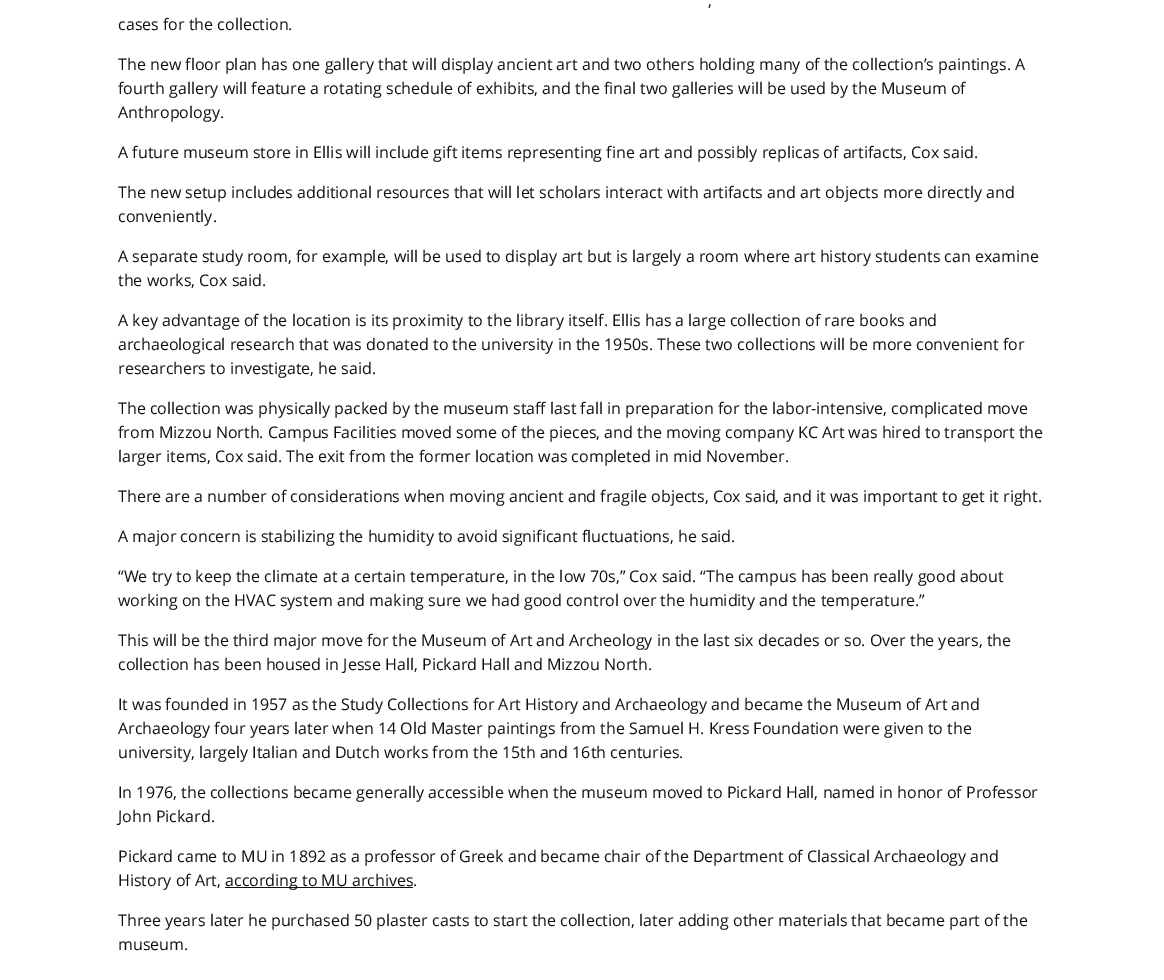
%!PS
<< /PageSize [1164 980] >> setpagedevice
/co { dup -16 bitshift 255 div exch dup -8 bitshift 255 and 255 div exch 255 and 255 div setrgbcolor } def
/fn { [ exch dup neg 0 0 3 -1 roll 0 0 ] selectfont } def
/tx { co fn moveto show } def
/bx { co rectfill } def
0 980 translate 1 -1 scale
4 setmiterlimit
0 0 1164 980 16#FFFFFF bx
225 887 188 1 16#111111 bx
(,) 708 6 /OpenSans-Regular 16 16#111111 tx
(cases for the collection.) 118 30 /OpenSans-Regular 16 16#111111 tx
(The new floor plan has one gallery that will display ancient art and two others holding many of the collection’s paintings. A) 118 70 /OpenSans-Regular 16 16#111111 tx
(fourth gallery will feature a rotating schedule of exhibits, and the final two galleries will be used by the Museum of) 118 94 /OpenSans-Regular 16 16#111111 tx
(Anthropology.) 118 118 /OpenSans-Regular 16 16#111111 tx
(A future museum store in Ellis will include gift items representing fine art and possibly replicas of artifacts, Cox said.) 118 158 /OpenSans-Regular 16 16#111111 tx
(The new setup includes additional resources that will let scholars interact with artifacts and art objects more directly and) 118 198 /OpenSans-Regular 16 16#111111 tx
(conveniently.) 118 222 /OpenSans-Regular 16 16#111111 tx
(A separate study room, for example, will be used to display art but is largely a room where art history students can examine) 118 262 /OpenSans-Regular 16 16#111111 tx
(the works, Cox said.) 118 286 /OpenSans-Regular 16 16#111111 tx
(A key advantage of the location is its proximity to the library itself. Ellis has a large collection of rare books and) 118 326 /OpenSans-Regular 16 16#111111 tx
(archaeological research that was donated to the university in the 1950s. These two collections will be more convenient for) 118 350 /OpenSans-Regular 16 16#111111 tx
(researchers to investigate, he said.) 118 374 /OpenSans-Regular 16 16#111111 tx
(The collection was physically packed by the museum staff last fall in preparation for the labor-intensive, complicated move) 118 414 /OpenSans-Regular 16 16#111111 tx
(from Mizzou North. Campus Facilities moved some of the pieces, and the moving company KC Art was hired to transport the) 118 438 /OpenSans-Regular 16 16#111111 tx
(larger items, Cox said. The exit from the former location was completed in mid November.) 118 462 /OpenSans-Regular 16 16#111111 tx
(There are a number of considerations when moving ancient and fragile objects, Cox said, and it was important to get it right.) 118 502 /OpenSans-Regular 16 16#111111 tx
(A major concern is stabilizing the humidity to avoid significant fluctuations, he said.) 118 542 /OpenSans-Regular 16 16#111111 tx
(“We try to keep the climate at a certain temperature, in the low 70s,” Cox said. “The campus has been really good about) 118 582 /OpenSans-Regular 16 16#111111 tx
(working on the HVAC system and making sure we had good control over the humidity and the temperature.”) 118 606 /OpenSans-Regular 16 16#111111 tx
(This will be the third major move for the Museum of Art and Archeology in the last six decades or so. Over the years, the) 118 646 /OpenSans-Regular 16 16#111111 tx
(collection has been housed in Jesse Hall, Pickard Hall and Mizzou North.) 118 670 /OpenSans-Regular 16 16#111111 tx
(It was founded in 1957 as the Study Collections for Art History and Archaeology and became the Museum of Art and) 118 710 /OpenSans-Regular 16 16#111111 tx
(Archaeology four years later when 14 Old Master paintings from the Samuel H. Kress Foundation were given to the) 118 734 /OpenSans-Regular 16 16#111111 tx
(university, largely Italian and Dutch works from the 15th and 16th centuries.) 118 758 /OpenSans-Regular 16 16#111111 tx
(In 1976, the collections became generally accessible when the museum moved to Pickard Hall, named in honor of Professor) 118 798 /OpenSans-Regular 16 16#111111 tx
(John Pickard.) 118 822 /OpenSans-Regular 16 16#111111 tx
(Pickard came to MU in 1892 as a professor of Greek and became chair of the Department of Classical Archaeology and) 118 862 /OpenSans-Regular 16 16#111111 tx
(History of Art,) 118 886 /OpenSans-Regular 16 16#111111 tx
(according to MU archives.) 225 886 /OpenSans-Regular 16 16#111111 tx
(Three years later he purchased 50 plaster casts to start the collection, later adding other materials that became part of the) 118 926 /OpenSans-Regular 16 16#111111 tx
(museum.) 118 950 /OpenSans-Regular 16 16#111111 tx
showpage
